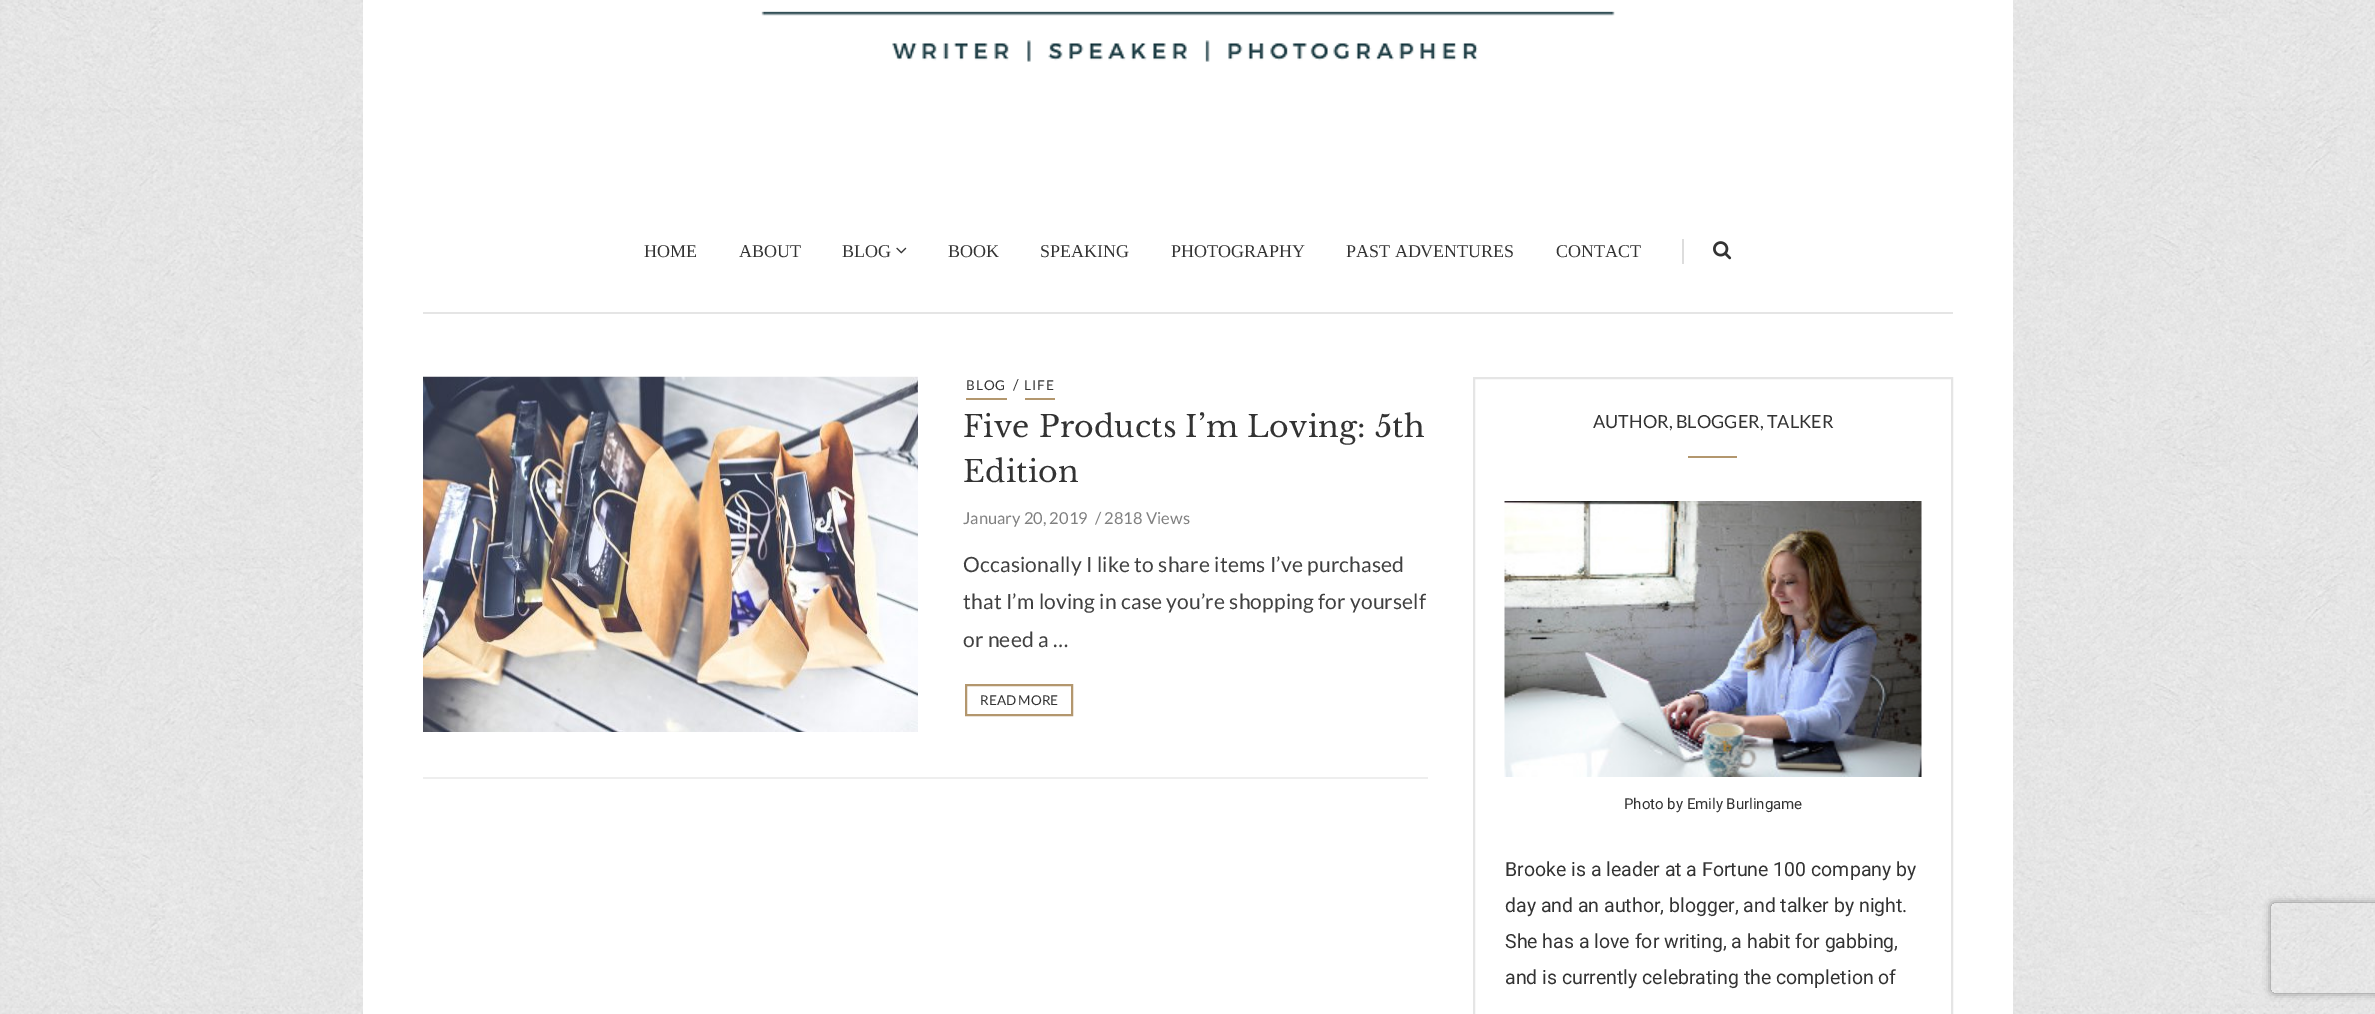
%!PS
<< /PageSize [2375 1014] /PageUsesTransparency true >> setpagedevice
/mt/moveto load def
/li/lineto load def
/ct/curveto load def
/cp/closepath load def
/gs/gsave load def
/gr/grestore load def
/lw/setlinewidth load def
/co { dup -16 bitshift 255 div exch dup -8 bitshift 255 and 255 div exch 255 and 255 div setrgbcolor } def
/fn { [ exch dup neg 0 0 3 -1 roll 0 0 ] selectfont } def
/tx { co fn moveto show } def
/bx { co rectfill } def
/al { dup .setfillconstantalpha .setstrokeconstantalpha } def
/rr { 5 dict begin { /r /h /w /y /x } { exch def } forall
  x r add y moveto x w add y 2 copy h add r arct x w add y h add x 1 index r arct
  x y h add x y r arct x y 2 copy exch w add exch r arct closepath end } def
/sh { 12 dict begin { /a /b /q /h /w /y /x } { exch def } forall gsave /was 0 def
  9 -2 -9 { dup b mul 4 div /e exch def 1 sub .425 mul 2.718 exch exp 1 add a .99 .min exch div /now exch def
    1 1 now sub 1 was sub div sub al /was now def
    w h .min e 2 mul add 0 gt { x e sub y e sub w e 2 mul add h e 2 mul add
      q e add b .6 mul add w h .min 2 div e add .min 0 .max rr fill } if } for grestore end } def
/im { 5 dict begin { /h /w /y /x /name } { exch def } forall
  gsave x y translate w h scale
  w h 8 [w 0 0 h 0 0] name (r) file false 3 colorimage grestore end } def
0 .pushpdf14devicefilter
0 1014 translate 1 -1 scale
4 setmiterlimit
0 0 2375 1014 16#FFFFFF bx
(media/1.raw) 0 0 2375 1014 im
363 0 1650 1014 16#FFFFFF bx
(media/2.raw) 761 11 854 51 im
423 312 1530 2 16#E5E5E5 bx
(media/3.raw) 896 247 11 7 im
1682 239 2 25 16#DDDDDD bx
(media/4.raw) 1713 241 19 19 im
(media/5.raw) 423 376 495 356 im
966 398 41 2 16#B3976E bx
1025 398 30 2 16#B3976E bx
2 lw
966 685 106 30 rectstroke
423 777 1005 2 16#EEEEEE bx
16#E5E5E5 co
1474 378 478 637 rectstroke
1688 456 49 2 16#B3976E bx
(media/6.raw) 1504 501 418 276 im
gs
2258 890 mt 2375 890 li 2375 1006 li 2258 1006 li cp 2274 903 mt 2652 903 li 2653.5 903 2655 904.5 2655 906 ct 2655 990 li 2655 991.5 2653.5 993 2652 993 ct 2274 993 li 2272.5 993 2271 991.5 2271 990 ct 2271 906 li 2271 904.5 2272.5 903 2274 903 ct cp eoclip newpath
16#808080 co
2271 903 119 90 3 4 1 sh
gr
(HOME) 644 257 /LiberationSerif-Regular 18 16#333333 tx
(ABOUT) 739 257 /LiberationSerif-Regular 18 16#333333 tx
(BLOG) 842 257 /LiberationSerif-Regular 18 16#333333 tx
(BOOK) 948 257 /LiberationSerif-Regular 18 16#333333 tx
(SPEAKING) 1040 257 /LiberationSerif-Regular 18 16#333333 tx
(PHOTOGRAPHY) 1171 257 /LiberationSerif-Regular 18 16#333333 tx
(PAST ADVENTURES) 1346 257 /LiberationSerif-Regular 18 16#333333 tx
(CONTACT) 1556 257 /LiberationSerif-Regular 18 16#333333 tx
/Lato-Regular 13.5 fn
966 390 mt 1 0 (BLOG) ashow
(/) 1013 390 /Lato-Regular 15 16#333333 tx
/Lato-Regular 13.5 fn
1024 390 mt 1 0 (LIFE) ashow
/LibreBaskerville-Regular 30 fn
963 437 mt .25 0 (Five Products I’m Loving: 5th) ashow
963 482 mt .25 0 (Edition) ashow
(January 20, 2019) 963 524 /Lato-Regular 16.5 16#808080 tx
(/ 2818 Views) 1095 524 /Lato-Regular 16.5 16#808080 tx
/Lato-Regular 21 fn
16#404040 co
963 572 mt .15 0 (Occasionally I like to share items I’ve purchased) ashow
963 609 mt .15 0 (that I’m loving in case you’re shopping for yourself) ashow
963 647 mt .15 0 (or need a …) ashow
(READ MORE) 980 705 /Lato-Regular 13.5 16#333333 tx
(AUTHOR, BLOGGER, TALKER) 1593 428 /Lato-Regular 18 16#333333 tx
(Photo by Emily Burlingame) 1624 809 /Roboto-Regular 15 16#333333 tx
(Brooke is a leader at a Fortune 100 company by) 1505 876 /Roboto-Regular 19.5 16#333333 tx
(day and an author, blogger, and talker by night.) 1505 912 /Roboto-Regular 19.5 16#333333 tx
(She has a love for writing, a habit for gabbing,) 1505 948 /Roboto-Regular 19.5 16#333333 tx
(and is currently celebrating the completion of) 1505 984 /Roboto-Regular 19.5 16#333333 tx
.poppdf14devicefilter showpage
